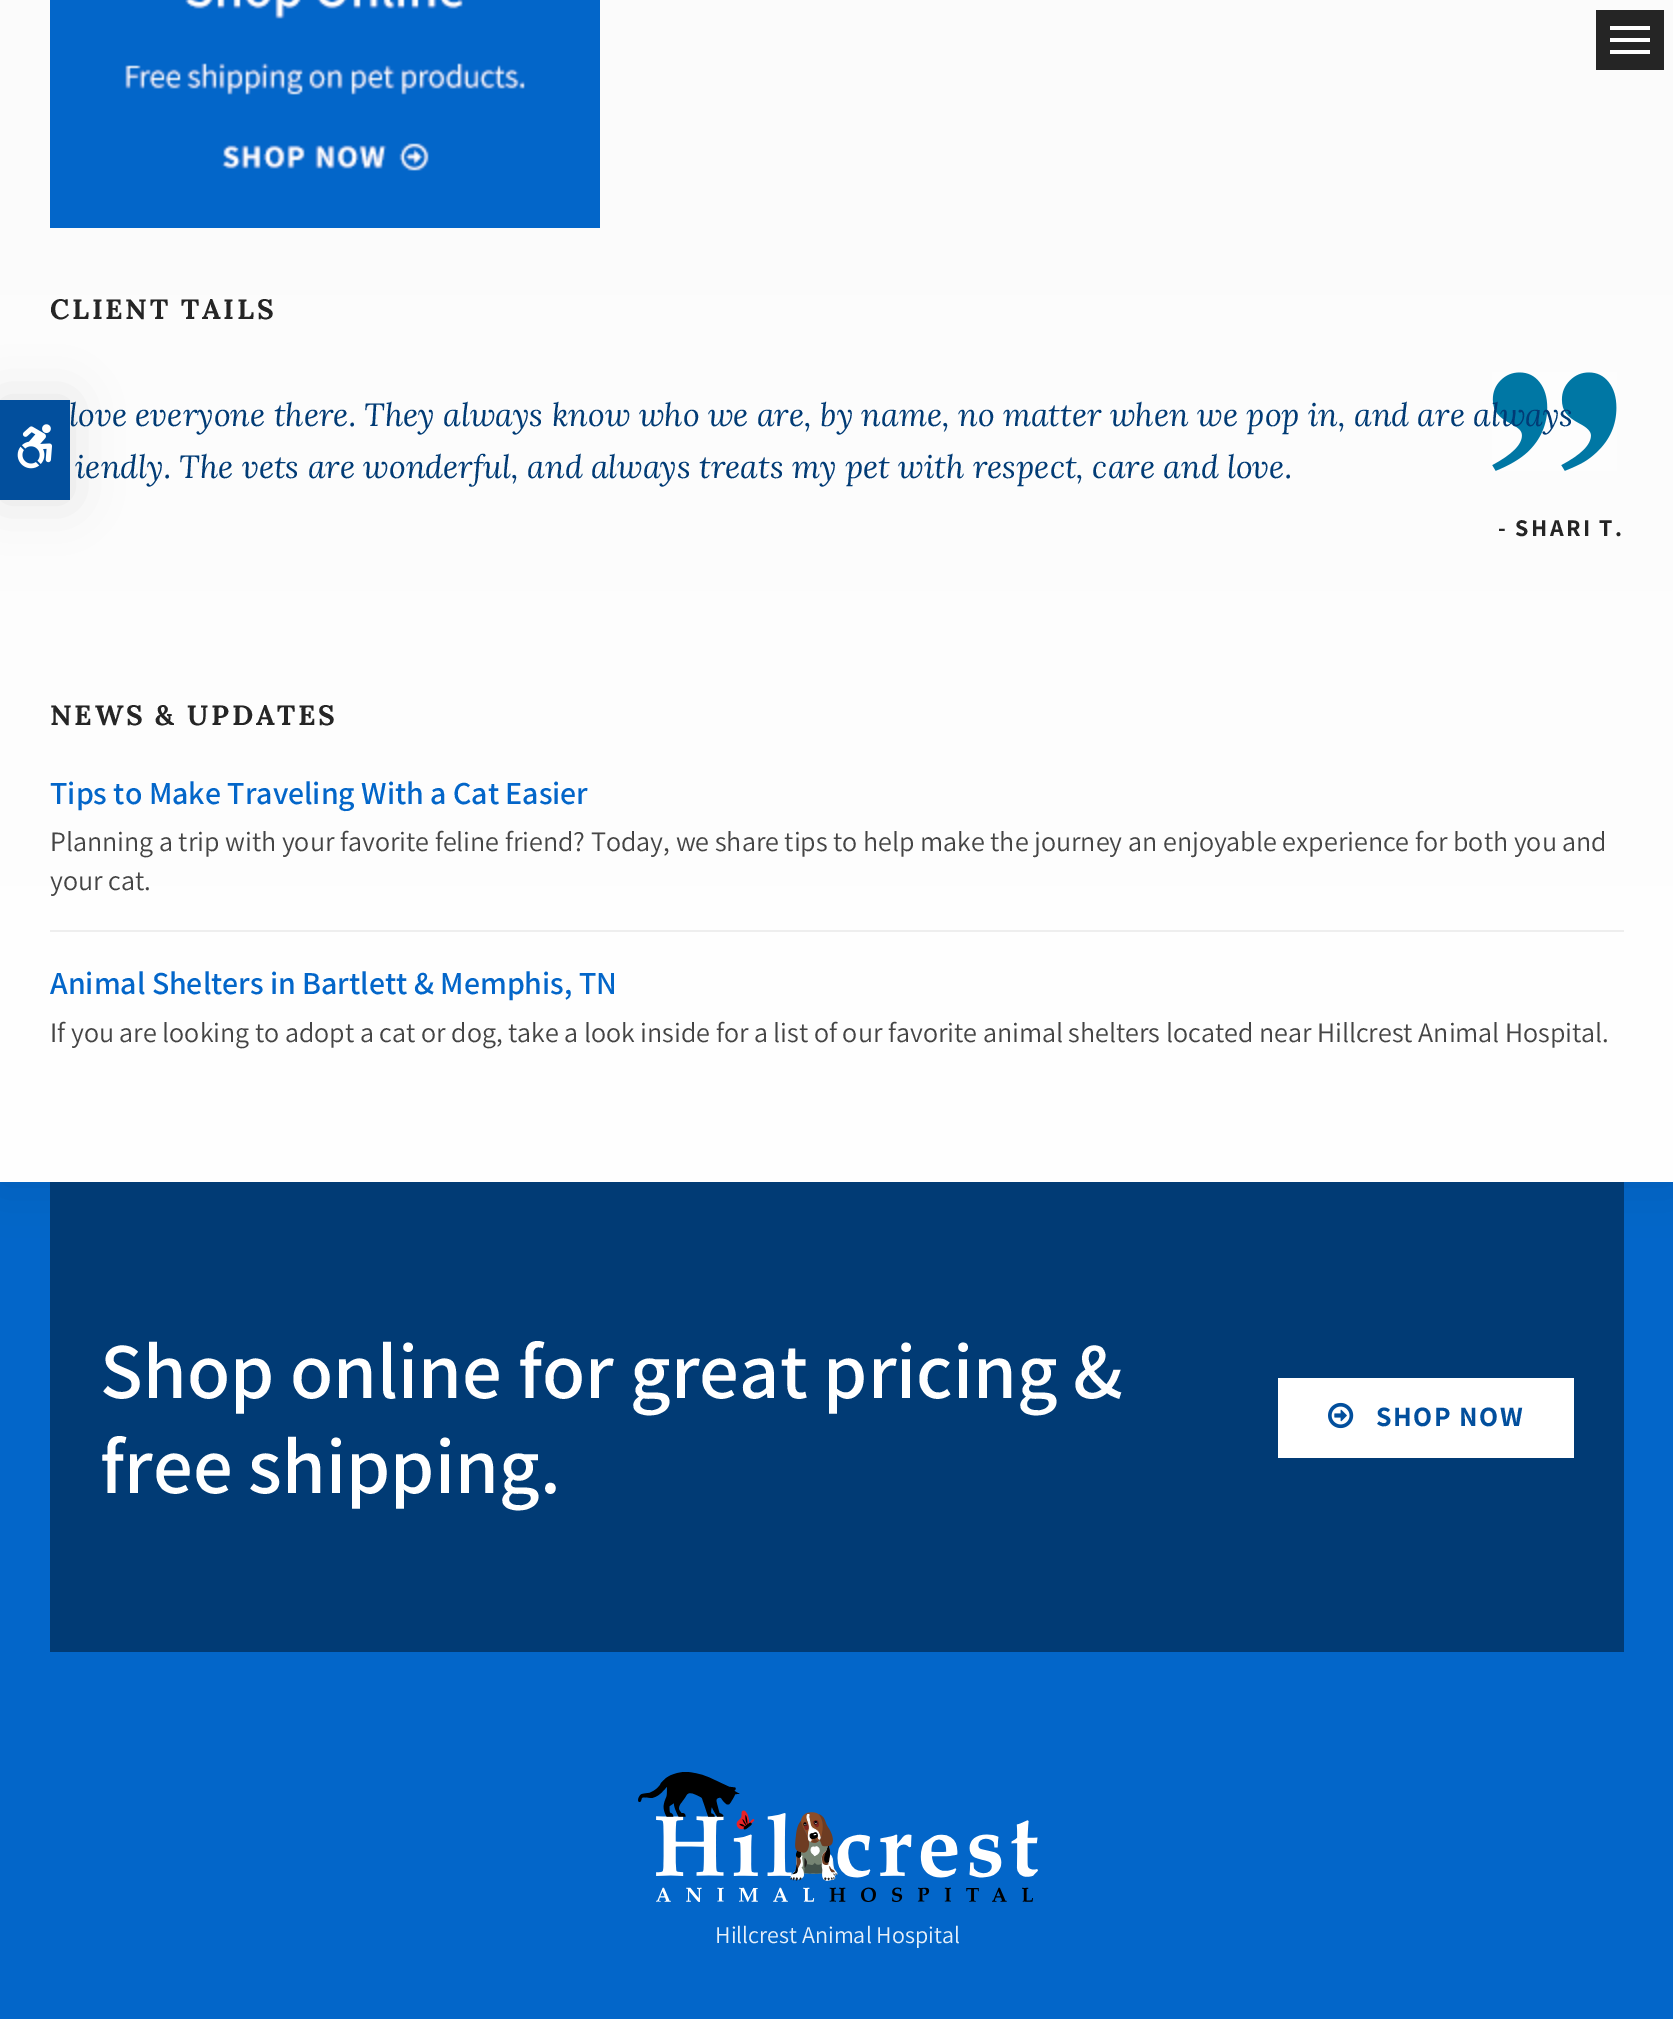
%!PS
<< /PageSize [1673 2019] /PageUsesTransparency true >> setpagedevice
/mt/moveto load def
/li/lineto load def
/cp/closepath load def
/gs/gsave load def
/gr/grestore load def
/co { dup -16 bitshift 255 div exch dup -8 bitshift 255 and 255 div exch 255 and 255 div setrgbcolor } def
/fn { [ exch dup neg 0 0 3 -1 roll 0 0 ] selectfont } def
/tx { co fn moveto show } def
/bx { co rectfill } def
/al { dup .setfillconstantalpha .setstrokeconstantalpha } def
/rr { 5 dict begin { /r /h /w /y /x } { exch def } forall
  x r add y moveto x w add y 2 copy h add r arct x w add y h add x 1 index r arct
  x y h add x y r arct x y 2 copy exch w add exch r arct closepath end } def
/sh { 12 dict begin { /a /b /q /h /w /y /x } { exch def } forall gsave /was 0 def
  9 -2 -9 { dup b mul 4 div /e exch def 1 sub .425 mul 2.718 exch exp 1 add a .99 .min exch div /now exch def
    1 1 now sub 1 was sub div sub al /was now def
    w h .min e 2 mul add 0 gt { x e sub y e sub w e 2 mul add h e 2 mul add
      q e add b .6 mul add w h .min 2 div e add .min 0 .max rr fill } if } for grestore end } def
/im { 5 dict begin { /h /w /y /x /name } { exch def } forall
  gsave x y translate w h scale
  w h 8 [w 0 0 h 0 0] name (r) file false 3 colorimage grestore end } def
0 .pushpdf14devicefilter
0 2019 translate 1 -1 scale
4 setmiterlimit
0 0 1673 2019 16#0366C9 bx
16#010101 co
0 -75 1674 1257 0 25 .1 sh
gs 0 0 mt 1673 0 li 1673 1182 li 0 1182 li cp clip newpath
<< /ShadingType 2 /ColorSpace /DeviceRGB /Coords [837 -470 837 1182] /Extend [true true] /Function << /FunctionType 2 /Domain [0 1] /C0 [.98 .98 .98] /C1 [1 1 1] /N 1 >> >> shfill gr
1596 10 68 60 16#252525 bx
1610 26 40 4 16#FFFFFF bx
1610 38 40 4 16#FFFFFF bx
1610 50 40 4 16#FFFFFF bx
(media/1.raw) 50 0 550 228 im
(media/2.raw) 1492 372 125 99 im
50 930 1574 2 16#EEEEEE bx
16#010101 co
0 400 70 100 0 25 .1 sh
0 400 70 100 16#024F9D bx
(media/3.raw) 17 424 35 45 im
50 1182 1574 470 16#013B75 bx
1278 1378 296 80 16#FFFFFF bx
(media/4.raw) 1328 1402 26 27 im
(media/5.raw) 638 1772 400 130 im
/Lora-Bold 28 fn
16#252525 co
50 319 mt 2.75 0 (CLIENT TAILS) ashow
(love everyone there. They always know who we are, by name, no matter when we pop in, and are always) 69 426 /Lora-Italic 32 16#013B75 tx
(iendly. The vets are wonderful, and always treats my pet with respect, care and love.) 75 478 /Lora-Italic 32 16#013B75 tx
/Assistant-Bold 24 fn
16#252525 co
1498 536 mt 2.4 0 (- SHARI T.) ashow
/Lora-Bold 28 fn
50 725 mt 2.75 0 (NEWS & UPDATES) ashow
(Tips to Make Traveling With a Cat Easier) 50 804 /Assistant-SemiBold 32 16#0366C9 tx
(Planning a trip with your favorite feline friend? Today, we share tips to help make the journey an enjoyable experience for both you and) 50 851 /Assistant-Regular 28 16#444444 tx
(your cat.) 50 890 /Assistant-Regular 28 16#444444 tx
(Animal Shelters in Bartlett & Memphis, TN) 50 994 /Assistant-SemiBold 32 16#0366C9 tx
(If you are looking to adopt a cat or dog, take a look inside for a list of our favorite animal shelters located near Hillcrest Animal Hospital.) 50 1042 /Assistant-Regular 28 16#444444 tx
(Shop online for great pricing &) 100 1398 /Assistant-SemiBold 79.25 16#FFFFFF tx
(free shipping.) 100 1493 /Assistant-SemiBold 79.25 16#FFFFFF tx
/Assistant-Bold 28 fn
16#024F9D co
1376 1426 mt 1.5 0 (SHOP NOW) ashow
(Hillcrest Animal Hospital) 715 1943 /Assistant-Regular 24 16#E6F0FA tx
.poppdf14devicefilter showpage
